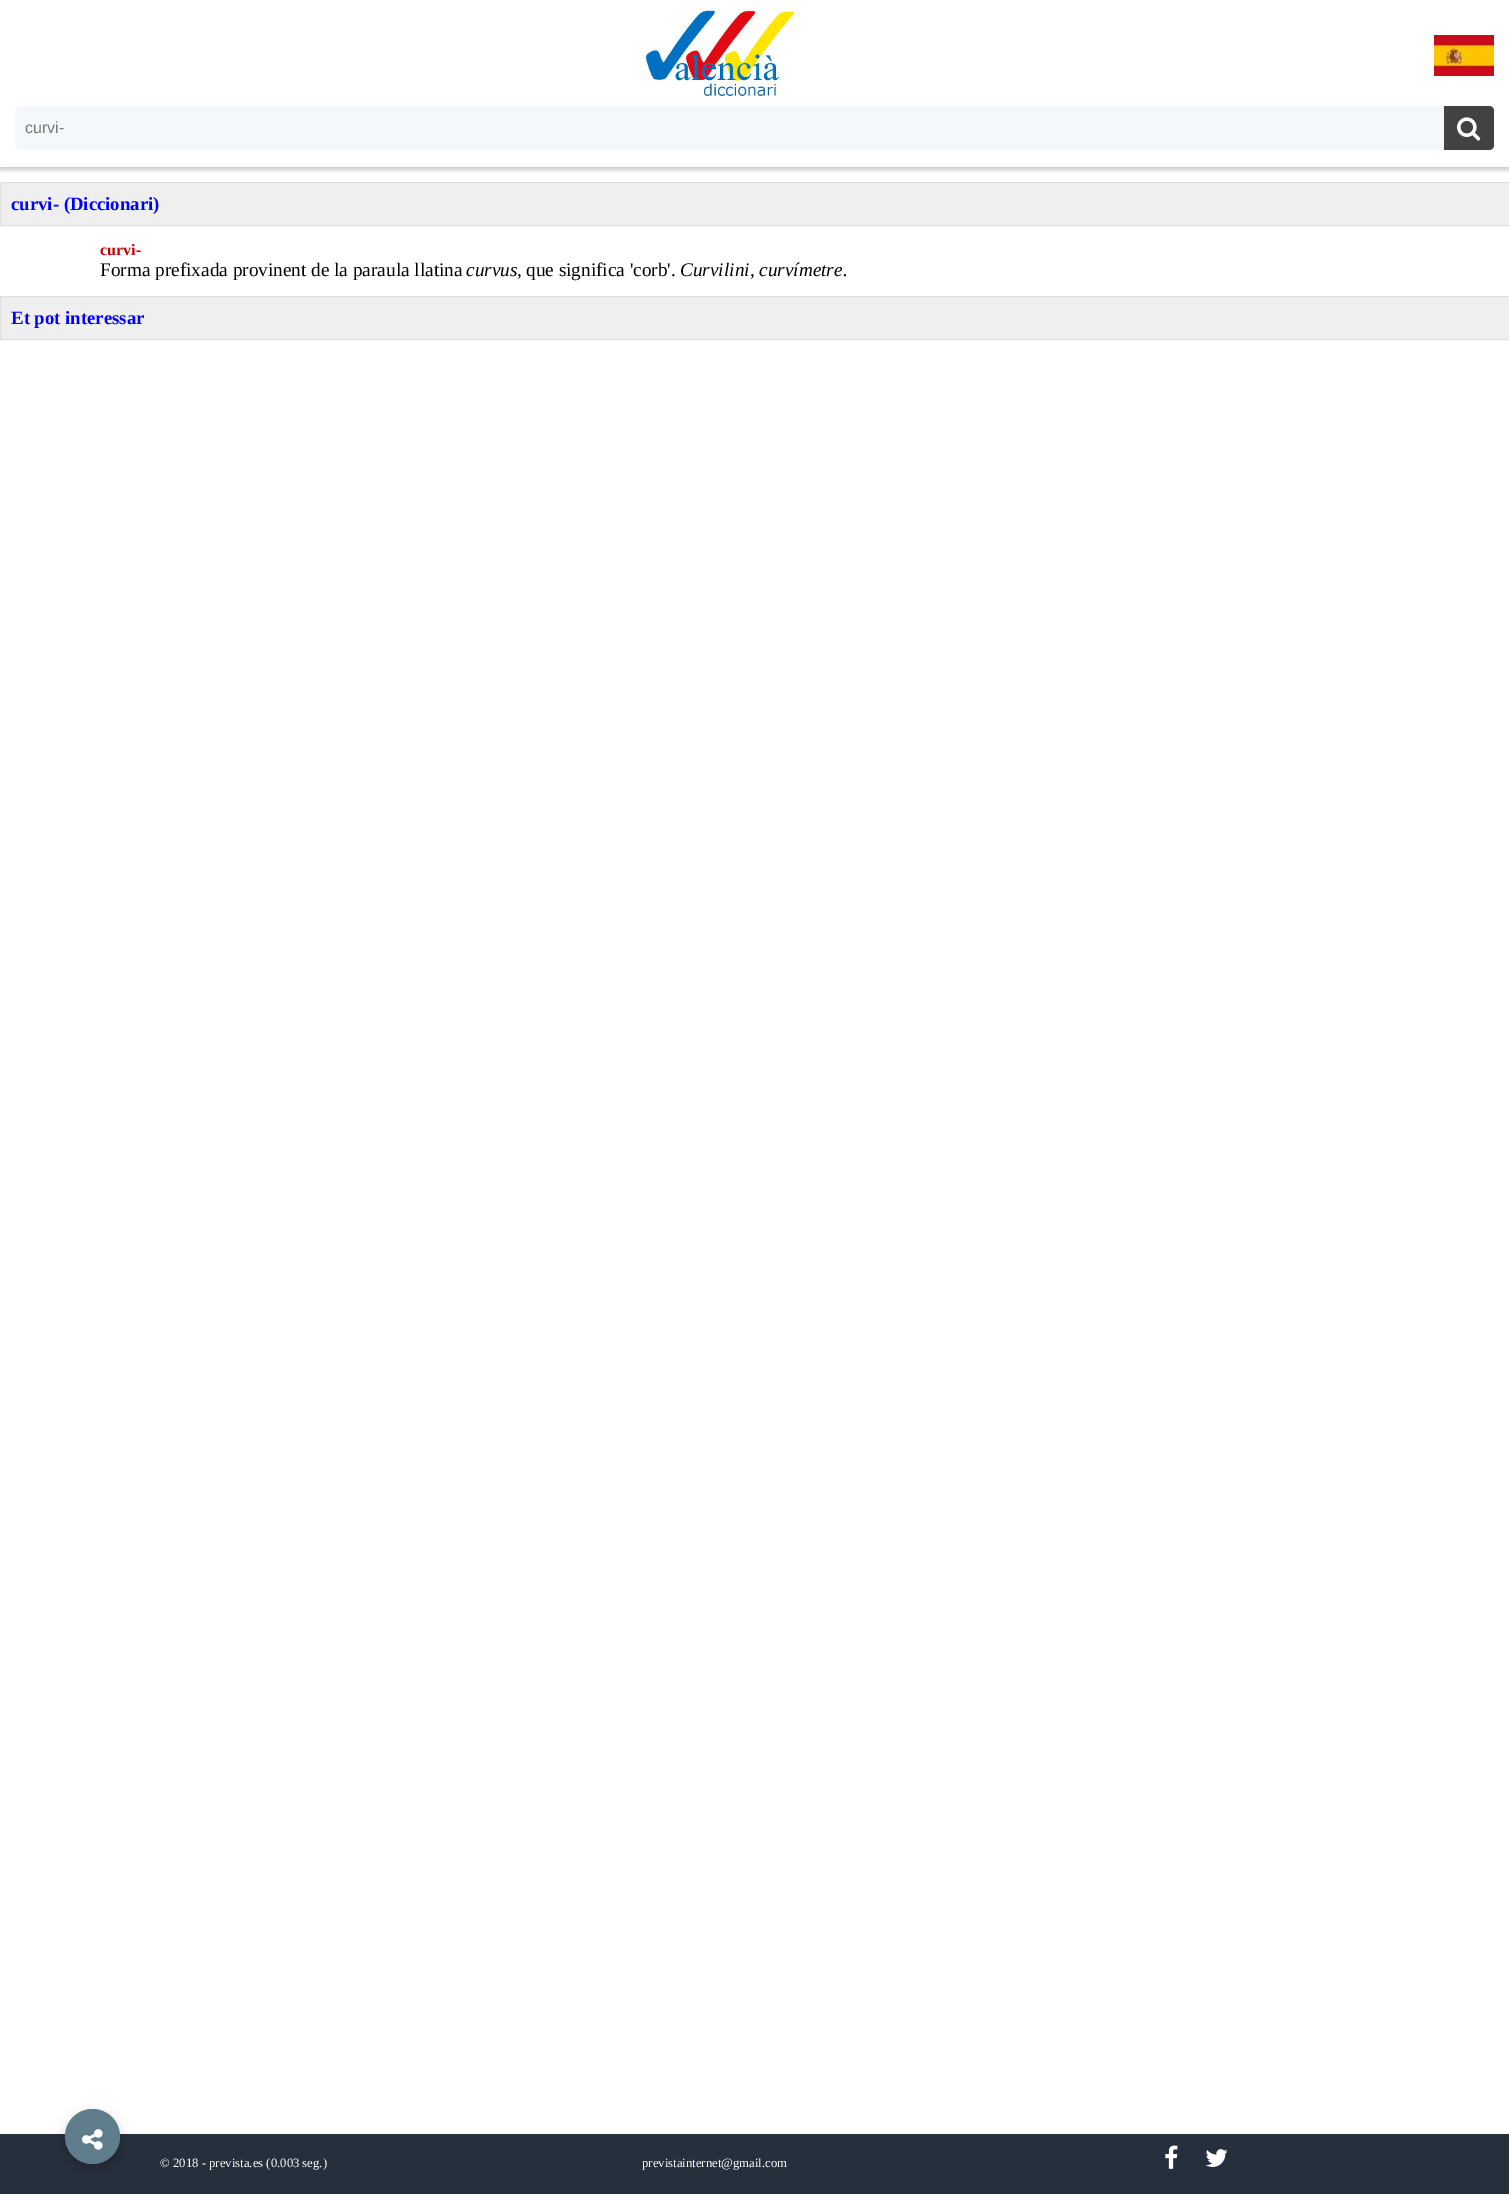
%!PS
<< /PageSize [1509 2194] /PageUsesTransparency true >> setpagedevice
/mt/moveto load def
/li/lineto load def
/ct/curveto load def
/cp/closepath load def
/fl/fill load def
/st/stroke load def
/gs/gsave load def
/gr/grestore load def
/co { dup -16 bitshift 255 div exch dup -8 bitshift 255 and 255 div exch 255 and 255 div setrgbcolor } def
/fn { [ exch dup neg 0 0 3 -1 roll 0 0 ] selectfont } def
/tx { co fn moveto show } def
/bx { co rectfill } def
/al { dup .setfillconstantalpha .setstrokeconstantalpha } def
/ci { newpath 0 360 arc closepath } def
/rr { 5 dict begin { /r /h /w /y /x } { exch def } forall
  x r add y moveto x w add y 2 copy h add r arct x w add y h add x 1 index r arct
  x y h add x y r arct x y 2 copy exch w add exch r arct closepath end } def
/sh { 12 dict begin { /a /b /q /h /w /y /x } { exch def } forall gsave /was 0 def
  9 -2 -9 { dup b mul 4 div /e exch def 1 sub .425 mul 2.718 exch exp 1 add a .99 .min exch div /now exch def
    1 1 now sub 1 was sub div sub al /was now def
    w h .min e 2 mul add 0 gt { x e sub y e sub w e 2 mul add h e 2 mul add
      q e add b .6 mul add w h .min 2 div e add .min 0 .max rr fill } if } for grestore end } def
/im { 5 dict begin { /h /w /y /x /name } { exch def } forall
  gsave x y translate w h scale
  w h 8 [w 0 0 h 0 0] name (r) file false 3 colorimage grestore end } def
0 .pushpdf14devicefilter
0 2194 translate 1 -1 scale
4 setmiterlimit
0 0 1509 2194 16#FFFFFF bx
16#EFEFEF co
.5 182.5 mt 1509.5 182.5 li 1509.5 225.5 li .5 225.5 li cp gs fl gr
16#DFDFDF co
st
gs
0 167 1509 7 rectclip
16#000000 co
0 2 1509 167 0 5 .12 sh
gr
gs
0 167 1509 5 rectclip
16#000000 co
0 2 1509 167 0 2.5 .16 sh
gr
(media/1.raw) 645 10 150 87 im
(media/2.raw) 1434 35 60 41 im
16#F5F8FA co
15 106 1479 44 5 rr fl
16#424242 co
1444 106 mt 1489 106 li 1492 106 1494 108 1494 111 ct 1494 145 li 1494 148 1492 150 1489 150 ct 1444 150 li cp fl
(media/3.raw) 1457 117 24 24 im
16#EFEFEF co
.5 296.5 mt 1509.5 296.5 li 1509.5 339.5 li .5 339.5 li cp gs fl gr
16#DFDFDF co
st
0 2134 1509 60 16#262F3C bx
16#000000 co
65 2115 55 55 27.5 6 .2 sh
16#607D8B co
92.5 2136.5 27.5 ci fl
(media/4.raw) 82 2129 21 21 im
(media/5.raw) 1165 2145 13 24 im
(media/6.raw) 1205 2149 23 18 im
(curvi-) 25 133 /LiberationSans-Regular 16 16#777777 tx
(curvi- \(Diccionari\)) 11 210 /LiberationSerif-Bold 18.75 16#0000FF tx
(curvi-) 100 255 /LiberationSerif-Bold 16 16#C00000 tx
(Forma prefixada provinent de la paraula llatina) 100 276 /LiberationSerif-Regular 19.25 16#000000 tx
(curvus,) 466 276 /LiberationSerif-Italic 19.25 16#000000 tx
(que significa 'corb'.) 526 276 /LiberationSerif-Regular 19.25 16#000000 tx
(Curvilini, curvímetre.) 680 276 /LiberationSerif-Italic 19.25 16#000000 tx
(Et pot interessar) 11 324 /LiberationSerif-Bold 18.75 16#0000FF tx
(© 2018 - prevista.es \(0.003 seg.\)) 160 2167 /LiberationSerif-Regular 12.75 16#FFFFFF tx
(previstainternet@gmail.com) 642 2167 /LiberationSerif-Regular 12.75 16#FFFFFF tx
.poppdf14devicefilter showpage
